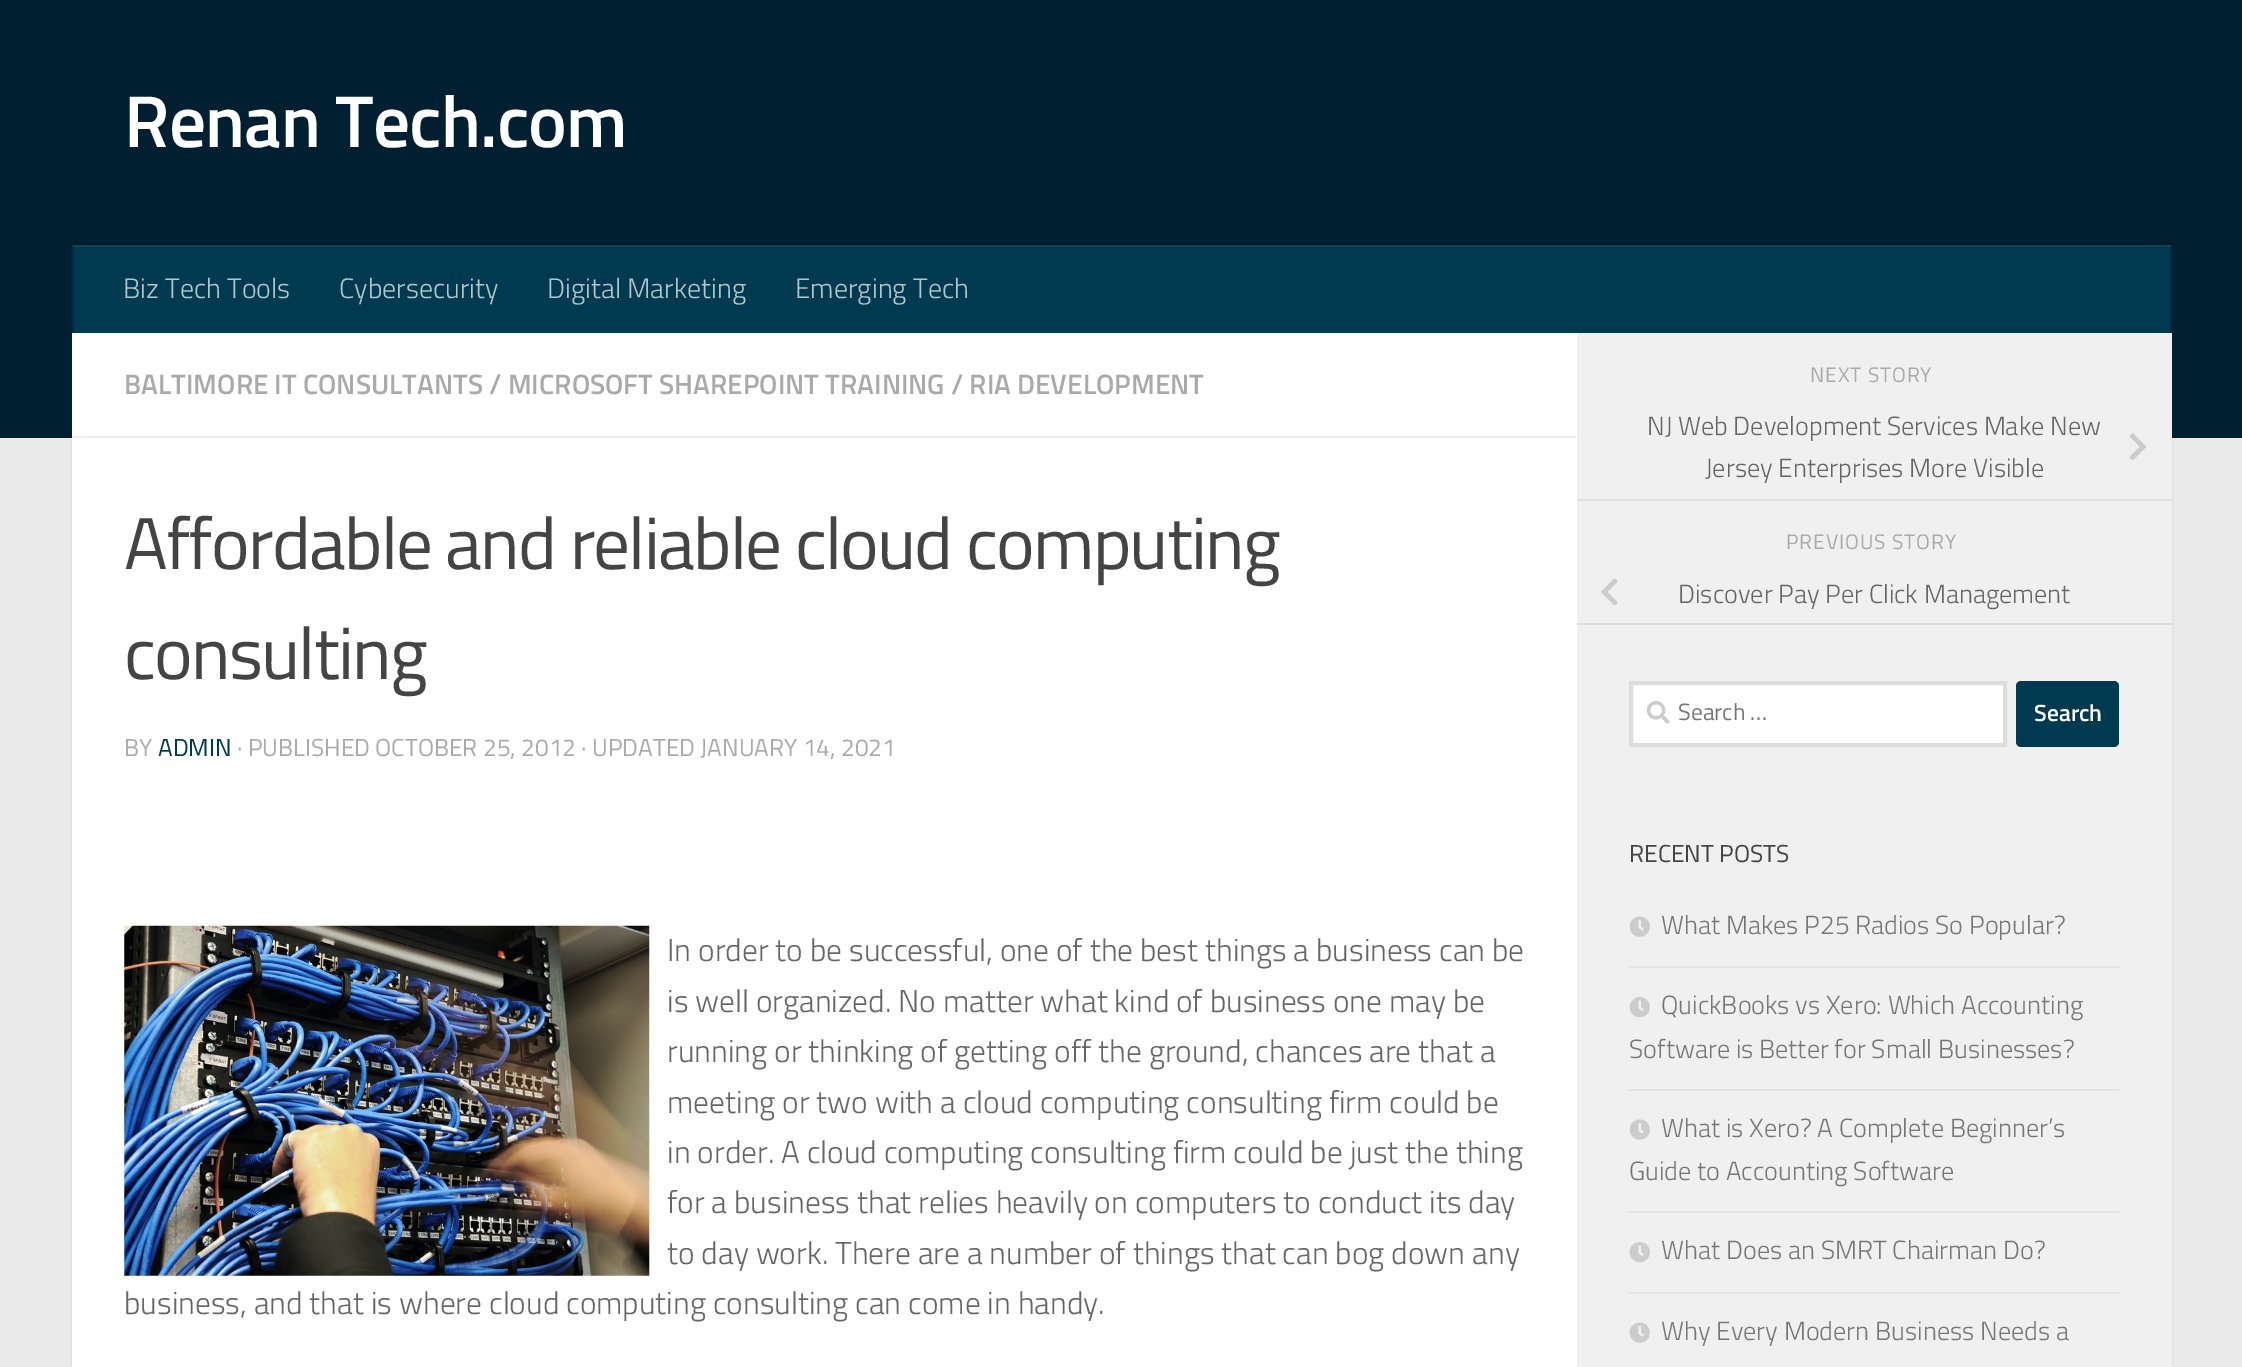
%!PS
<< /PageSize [2242 1367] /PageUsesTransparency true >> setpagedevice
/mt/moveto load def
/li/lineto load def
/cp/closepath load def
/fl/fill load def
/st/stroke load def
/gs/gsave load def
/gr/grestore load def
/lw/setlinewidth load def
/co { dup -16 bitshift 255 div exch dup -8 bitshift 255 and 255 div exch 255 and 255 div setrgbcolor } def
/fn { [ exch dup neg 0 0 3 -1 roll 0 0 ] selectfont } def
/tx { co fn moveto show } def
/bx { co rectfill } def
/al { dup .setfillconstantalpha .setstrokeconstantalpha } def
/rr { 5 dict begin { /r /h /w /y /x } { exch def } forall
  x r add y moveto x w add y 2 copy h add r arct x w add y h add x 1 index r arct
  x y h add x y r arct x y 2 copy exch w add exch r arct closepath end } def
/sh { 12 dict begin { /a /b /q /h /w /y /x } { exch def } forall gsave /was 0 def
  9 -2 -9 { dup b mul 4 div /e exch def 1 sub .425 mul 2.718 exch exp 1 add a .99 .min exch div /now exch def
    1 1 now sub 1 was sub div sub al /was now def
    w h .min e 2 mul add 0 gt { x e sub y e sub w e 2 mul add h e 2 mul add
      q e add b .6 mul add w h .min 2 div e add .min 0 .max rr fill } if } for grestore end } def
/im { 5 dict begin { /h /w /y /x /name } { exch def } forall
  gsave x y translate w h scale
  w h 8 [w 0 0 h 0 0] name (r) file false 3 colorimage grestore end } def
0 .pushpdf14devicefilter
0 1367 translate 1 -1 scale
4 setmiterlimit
0 0 2242 1367 16#EAEAEA bx
16#000000 co
72 334 2100 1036 0 1 .1 sh
0 0 2242 438 16#001F30 bx
16#001926 co
72 243 mt 72 245 li 2172 245 li 2172 331 li 2172 243 li cp fl
74 247 2096 86 16#003A51 bx
72 245 2100 2 16#0D445A bx
2170 245 2 88 16#002E41 bx
2170 245 2 2 16#0D384B bx
72 245 2 88 16#002E41 bx
72 245 2 2 16#0D384B bx
72 333 1505 1034 16#FFFFFF bx
1577 333 595 1034 16#F0F0F0 bx
72 436 1505 2 16#EEEEEE bx
(media/1.raw) 124 925 526 351 im
1577 499 595 2 16#DDDDDD bx
(media/2.raw) 2129 433 17 27 im
1577 623 595 2 16#DDDDDD bx
(media/3.raw) 1601 578 17 28 im
16#FFFFFF co
1631 683 mt 2005 683 li 2005 745 li 1631 745 li cp gs fl gr
16#DDDDDD co
4 lw
st
(media/4.raw) 1646 701 24 23 im
16#003A51 co
2016 681 103 66 5 rr fl
1629 966 490 2 16#E4E4E4 bx
(media/5.raw) 1629 916 21 21 im
1629 1089 490 2 16#E4E4E4 bx
(media/6.raw) 1629 997 21 21 im
1629 1211 490 2 16#E4E4E4 bx
(media/5.raw) 1629 1119 21 21 im
1629 1292 490 2 16#E4E4E4 bx
(media/6.raw) 1629 1242 21 21 im
(media/5.raw) 1629 1322 21 21 im
/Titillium-SemiBold 73.5 fn
16#FFFFFF co
124 147 mt -.9 0 (Renan Tech.com) ashow
(Biz Tech Tools) 123 298 /Titillium-Light 28 16#B3C4CB tx
(Cybersecurity) 339 298 /Titillium-Light 28 16#B3C4CB tx
(Digital Marketing) 547 298 /Titillium-Light 28 16#B3C4CB tx
(Emerging Tech) 795 298 /Titillium-Light 28 16#B3C4CB tx
(BALTIMORE IT CONSULTANTS / MICROSOFT SHAREPOINT TRAINING / RIA DEVELOPMENT) 124 394 /Titillium-SemiBold 28 16#AAAAAA tx
/Titillium-Regular 73.4 fn
16#444444 co
124 569 mt -1.75 0 (Affordable and reliable cloud computing) ashow
124 679 mt -1.75 0 (consulting) ashow
(BY) 124 756 /Titillium-Regular 24.5 16#AAAAAA tx
(ADMIN) 158 756 /Titillium-Regular 24.5 16#003A51 tx
(· PUBLISHED OCTOBER 25, 2012 · UPDATED JANUARY 14, 2021) 237 756 /Titillium-Regular 24.5 16#AAAAAA tx
(In order to be successful, one of the best things a business can be) 667 961 /Titillium-Light 31.5 16#666666 tx
(is well organized. No matter what kind of business one may be) 667 1012 /Titillium-Light 31.5 16#666666 tx
(running or thinking of getting off the ground, chances are that a) 667 1062 /Titillium-Light 31.5 16#666666 tx
(meeting or two with a cloud computing consulting firm could be) 667 1113 /Titillium-Light 31.5 16#666666 tx
(in order. A cloud computing consulting firm could be just the thing) 667 1163 /Titillium-Light 31.5 16#666666 tx
(for a business that relies heavily on computers to conduct its day) 667 1213 /Titillium-Light 31.5 16#666666 tx
(to day work. There are a number of things that can bog down any) 667 1264 /Titillium-Light 31.5 16#666666 tx
(business, and that is where cloud computing consulting can come in handy.) 124 1314 /Titillium-Light 31.5 16#666666 tx
/Titillium-Regular 21 fn
16#AAAAAA co
1810 382 mt .9 0 (NEXT STORY) ashow
(NJ Web Development Services Make New) 1647 435 /Titillium-Light 26.25 16#666666 tx
(Jersey Enterprises More Visible) 1705 477 /Titillium-Light 26.25 16#666666 tx
/Titillium-Regular 21 fn
16#AAAAAA co
1786 549 mt .9 0 (PREVIOUS STORY) ashow
(Discover Pay Per Click Management) 1678 603 /Titillium-Light 26.25 16#666666 tx
(Search …) 1678 720 /Titillium-Regular 23.5 16#777777 tx
(Search) 2034 721 /Titillium-SemiBold 23.5 16#FFFFFF tx
(RECENT POSTS) 1629 862 /Titillium-Regular 24.5 16#444444 tx
(What Makes P25 Radios So Popular?) 1661 934 /Titillium-Light 26.25 16#777777 tx
(QuickBooks vs Xero: Which Accounting) 1661 1014 /Titillium-Light 26.25 16#777777 tx
(Software is Better for Small Businesses?) 1629 1058 /Titillium-Light 26.25 16#777777 tx
(What is Xero? A Complete Beginner’s) 1661 1137 /Titillium-Light 26.25 16#777777 tx
(Guide to Accounting Software) 1629 1180 /Titillium-Light 26.25 16#777777 tx
(What Does an SMRT Chairman Do?) 1661 1259 /Titillium-Light 26.25 16#777777 tx
(Why Every Modern Business Needs a) 1661 1340 /Titillium-Light 26.25 16#777777 tx
.poppdf14devicefilter showpage
